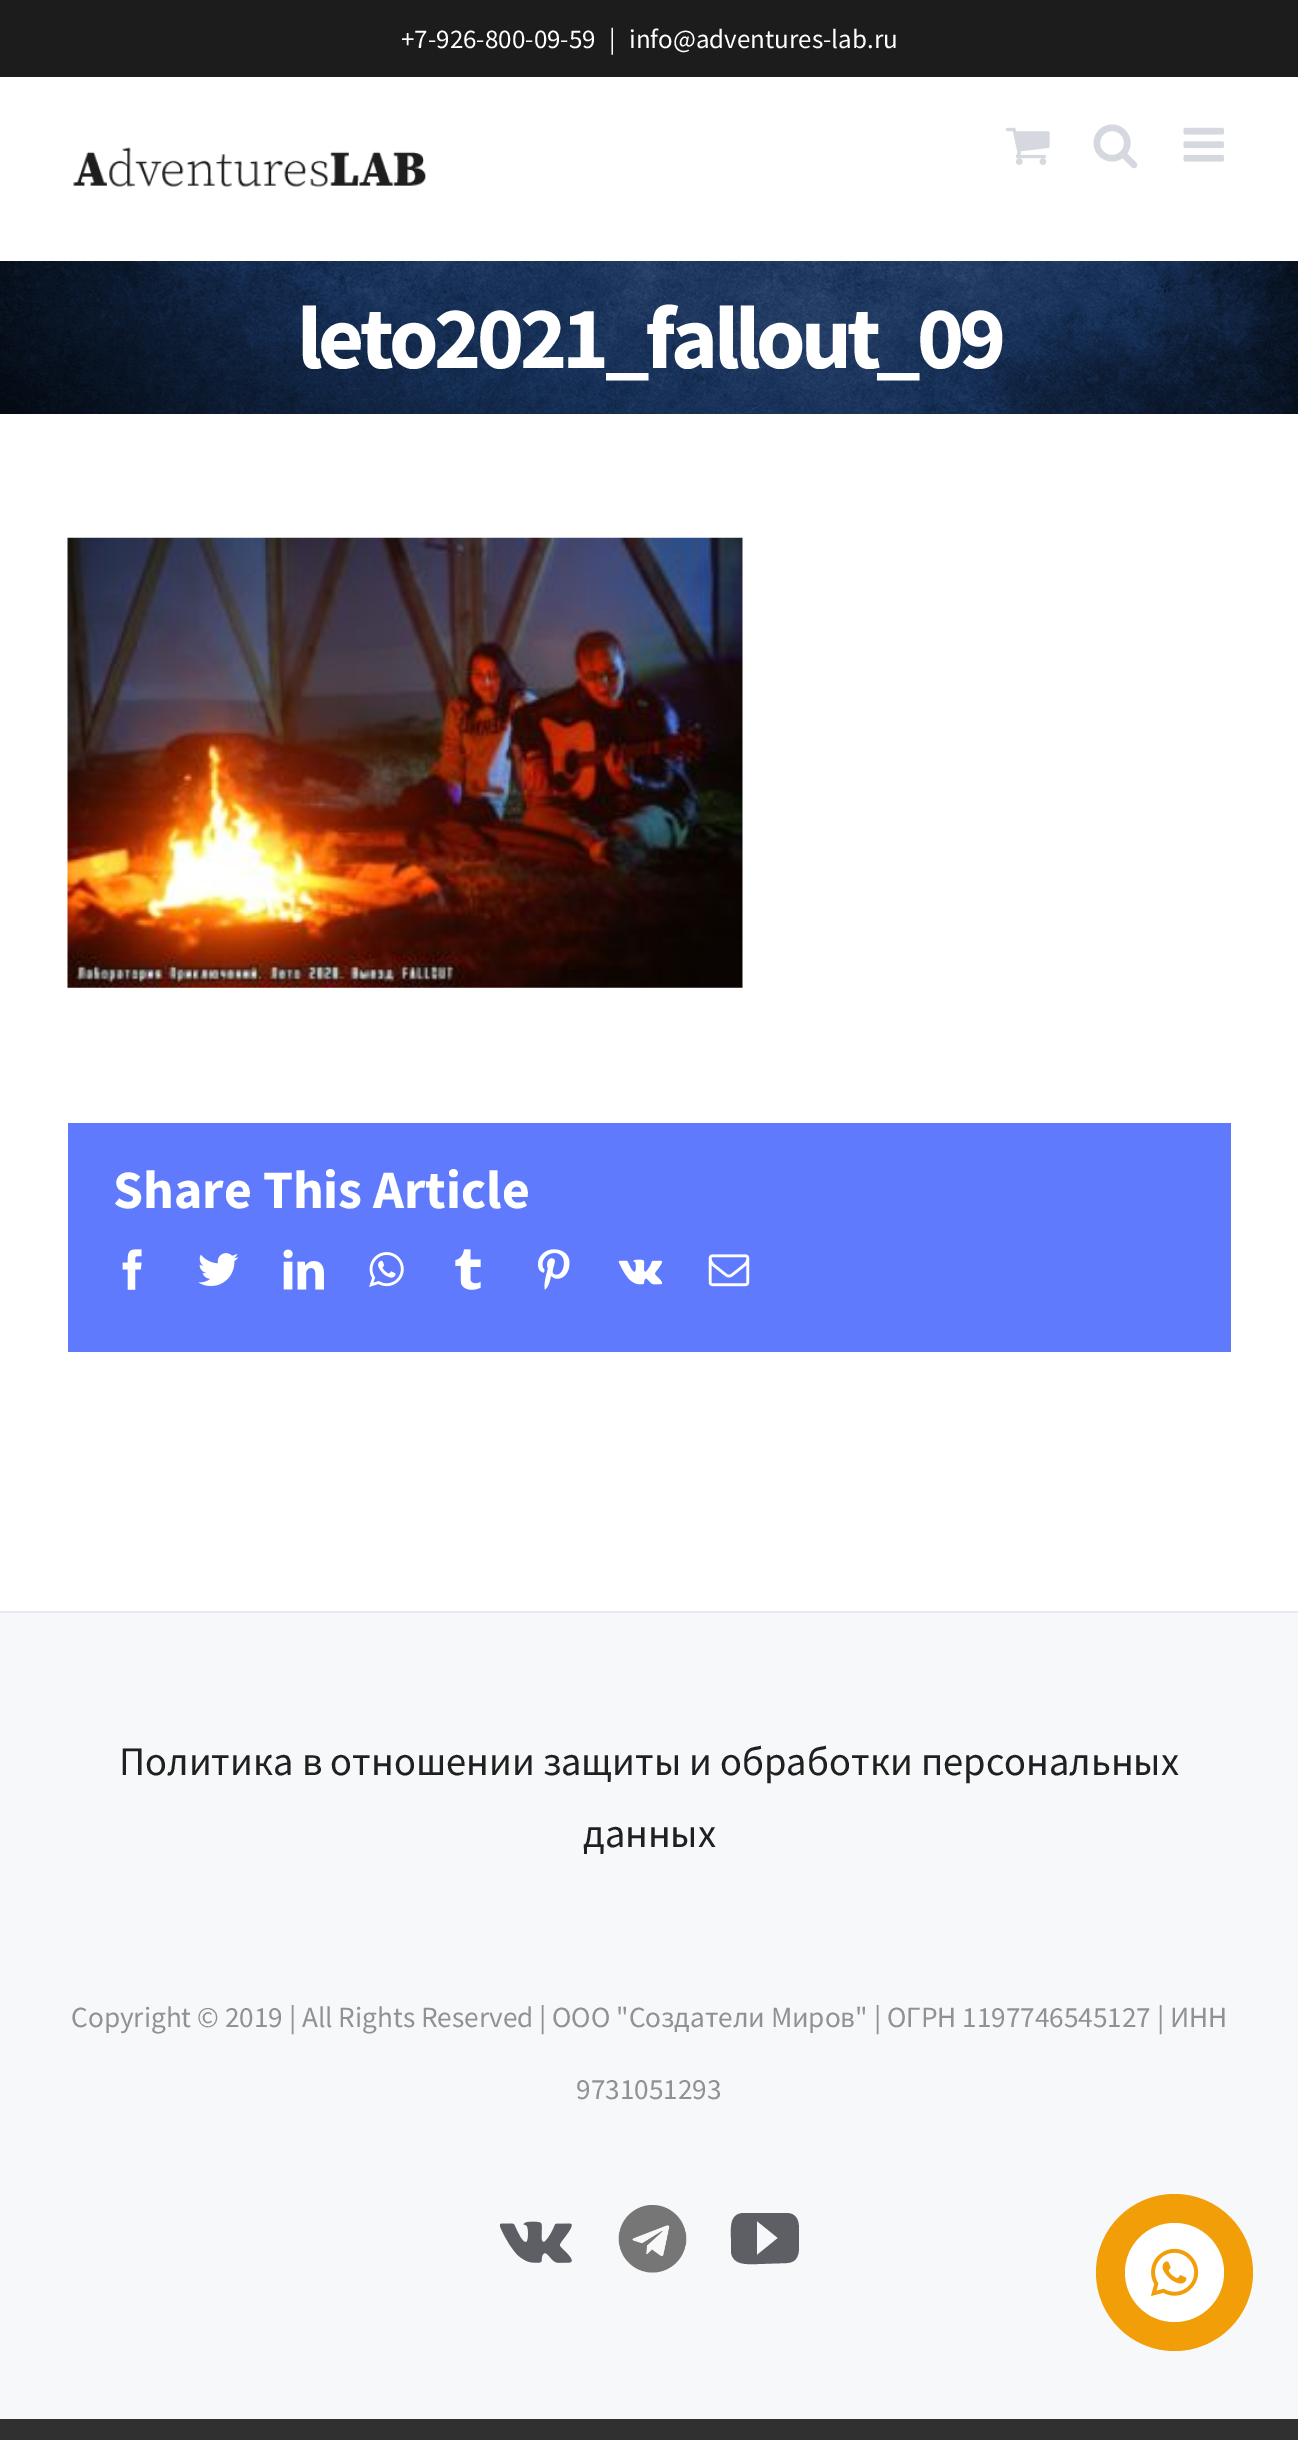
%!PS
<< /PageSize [1298 2440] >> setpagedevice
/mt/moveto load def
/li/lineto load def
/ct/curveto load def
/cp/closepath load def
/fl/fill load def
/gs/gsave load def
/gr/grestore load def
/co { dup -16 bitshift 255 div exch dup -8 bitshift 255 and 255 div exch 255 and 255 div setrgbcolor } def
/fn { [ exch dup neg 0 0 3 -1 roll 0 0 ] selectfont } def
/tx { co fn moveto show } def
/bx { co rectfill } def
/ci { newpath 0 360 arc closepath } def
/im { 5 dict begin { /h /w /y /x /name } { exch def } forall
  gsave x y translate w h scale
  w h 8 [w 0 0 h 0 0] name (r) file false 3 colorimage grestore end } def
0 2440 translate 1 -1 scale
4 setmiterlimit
0 0 1298 2440 16#303030 bx
0 77 1298 1534 16#FFFFFF bx
0 0 1298 77 16#1C1C1C bx
(media/1.raw) 73 147 353 40 im
(media/2.raw) 1005 127 45 38 im
(media/3.raw) 1093 124 45 45 im
(media/4.raw) 1183 127 41 35 im
(media/5.raw) 0 261 1298 153 im
(media/6.raw) 67 537 676 451 im
68 1123 1163 229 16#607AFE bx
(media/7.raw) 122 1249 20 41 im
(media/8.raw) 198 1253 41 33 im
(media/9.raw) 283 1249 41 41 im
(media/10.raw) 369 1252 35 35 im
(media/11.raw) 455 1249 26 41 im
(media/12.raw) 538 1249 32 41 im
(media/13.raw) 618 1259 45 26 im
(media/14.raw) 708 1254 42 33 im
0 1613 1298 806 16#F7F8F9 bx
0 1611 1298 2 16#E8EAF0 bx
(media/15.raw) 500 2221 72 42 im
(media/16.raw) 618 2205 69 68 im
gs
500 2205 299 124 rectclip
16#5D5F64 co
786 2213 mt 743 2213 li 729 2214 731 2229 731 2238 ct 731 2252 li 733 2266 748 2264 758 2264 ct 787 2263 li 801 2262 799 2248 799 2238 ct 799 2228 801 2213 786 2213 ct cp 757 2255 mt 757 2221 li 778 2238 li cp fl
gr
16#F19E09 co
1174.5 2272.5 78.5 ci fl
16#FFFFFF co
1174.5 2272.5 49.5 ci fl
(media/17.raw) 1151 2248 48 48 im
(+7-926-800-09-59) 401 48 /SourceSansPro-Regular 27 16#FFFFFF tx
(|) 609 48 /SourceSansPro-Regular 27 16#FFFFFF tx
(info@adventures-lab.ru) 629 48 /SourceSansPro-Regular 27 16#FFFFFF tx
/SourceSansPro-Bold 89.25 fn
297 368 mt -4.5 0 (leto2021_fallout_09) ashow
(Share This Article) 113 1208 /SourceSansPro-Bold 54 16#FFFFFF tx
(Политика в отношении защиты и обработки персональных) 119 1775 /SourceSansPro-Regular 40.5 16#202020 tx
(данных) 583 1847 /SourceSansPro-Regular 40.5 16#202020 tx
(Copyright © 2019 | All Rights Reserved | ООО "Создатели Миров" | ОГРН 1197746545127 | ИНН) 71 2027 /SourceSansPro-Regular 29.25 16#8F9195 tx
(9731051293) 576 2099 /SourceSansPro-Regular 29.25 16#8F9195 tx
showpage
